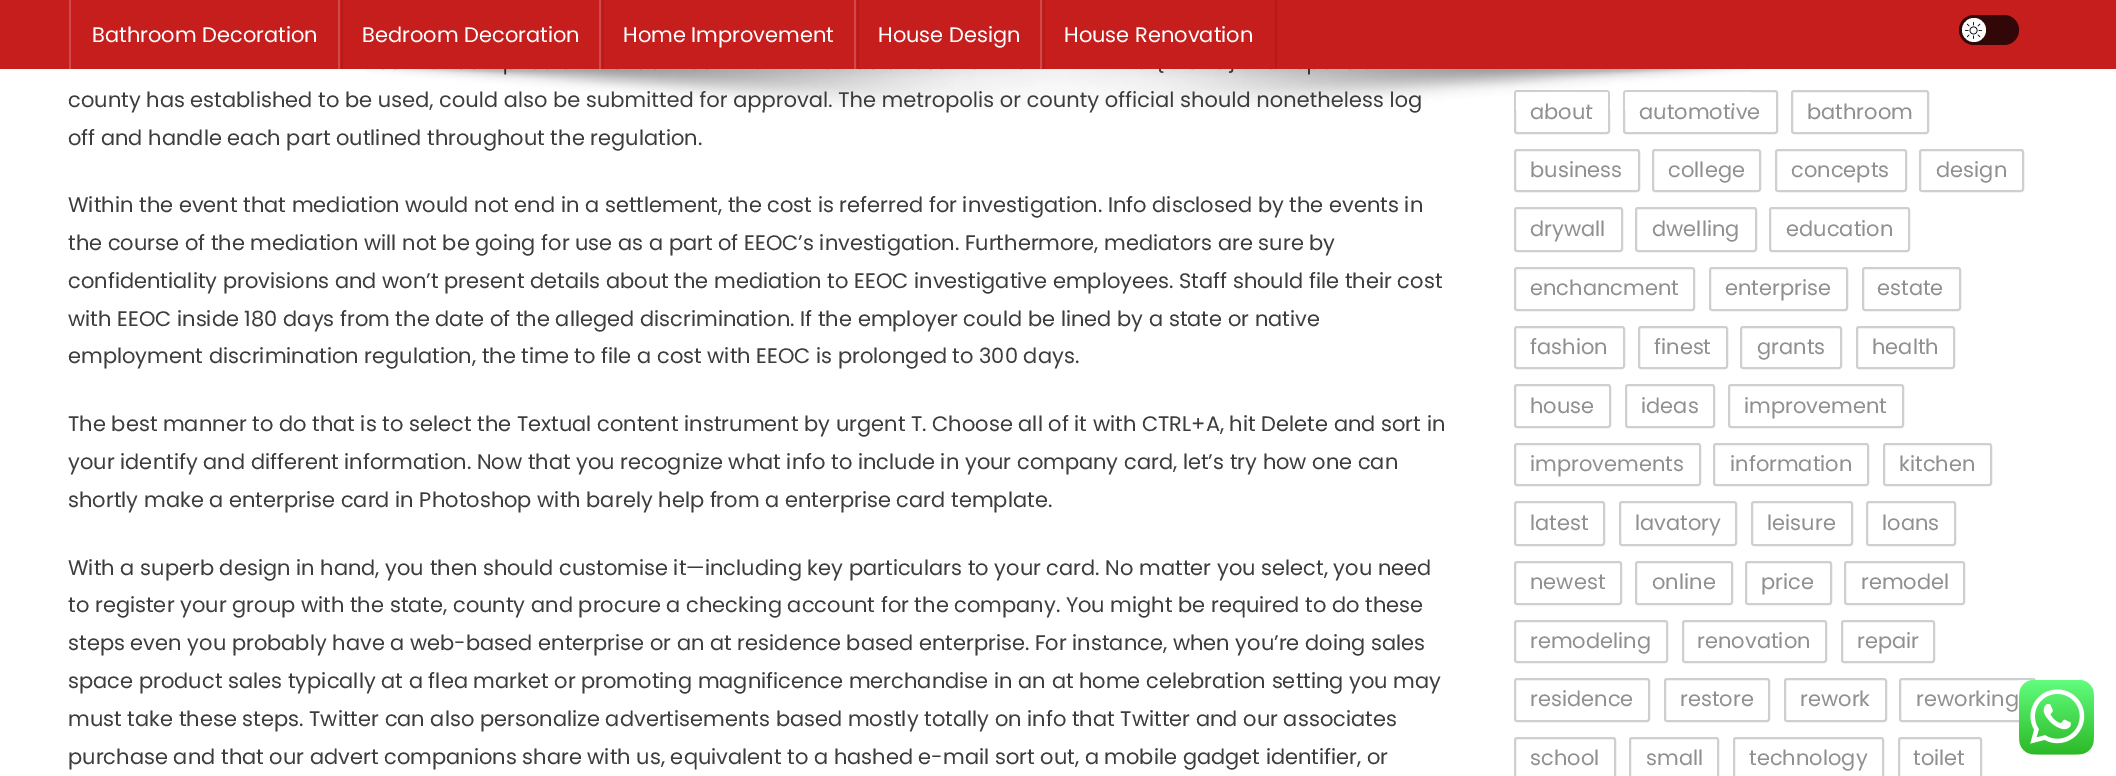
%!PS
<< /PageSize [2116 776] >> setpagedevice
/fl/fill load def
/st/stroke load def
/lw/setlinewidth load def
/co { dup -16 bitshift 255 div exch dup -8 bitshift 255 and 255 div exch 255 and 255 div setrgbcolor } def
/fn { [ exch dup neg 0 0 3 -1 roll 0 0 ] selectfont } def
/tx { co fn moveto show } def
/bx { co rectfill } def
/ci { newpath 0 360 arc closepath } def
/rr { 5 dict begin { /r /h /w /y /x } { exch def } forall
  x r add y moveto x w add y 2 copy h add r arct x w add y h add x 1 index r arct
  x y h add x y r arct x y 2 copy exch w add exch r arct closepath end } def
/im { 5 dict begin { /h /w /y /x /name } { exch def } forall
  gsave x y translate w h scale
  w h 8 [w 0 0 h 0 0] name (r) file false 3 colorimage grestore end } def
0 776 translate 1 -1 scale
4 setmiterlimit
0 0 2116 776 16#FFFFFF bx
0 0 2116 69 16#C61D1D bx
341 0 2 69 16#B61B1B bx
69 0 2 69 16#D14A4A bx
602 0 2 69 16#B61B1B bx
338 0 2 69 16#D14A4A bx
857 0 2 69 16#B61B1B bx
599 0 2 69 16#D14A4A bx
1043 0 2 69 16#B61B1B bx
854 0 2 69 16#D14A4A bx
1275 0 2 69 16#B61B1B bx
1040 0 2 69 16#D14A4A bx
16#320707 co
1959 15 60 30 15 rr fl
16#FFFFFF co
1974 30 12 ci fl
(media/1.raw) 1965 21 18 18 im
16#CFCFCF co
2 lw
1515 91 94 42 2 rr st
1624 91 153 42 2 rr st
1792 91 136 42 2 rr st
1515 150 124 41 2 rr st
1653 150 107 41 2 rr st
1776 150 130 41 2 rr st
1920 150 103 41 2 rr st
1515 208 107 43 2 rr st
1636 208 120 43 2 rr st
1770 208 139 43 2 rr st
1515 268 179 42 2 rr st
1710 268 137 42 2 rr st
1863 268 97 42 2 rr st
1515 327 109 41 2 rr st
1639 327 88 41 2 rr st
1741 327 100 41 2 rr st
1857 327 97 41 2 rr st
1515 385 95 42 2 rr st
1626 385 88 42 2 rr st
1729 385 174 42 2 rr st
1515 444 185 41 2 rr st
1714 444 154 41 2 rr st
1884 444 107 41 2 rr st
1515 502 89 43 2 rr st
1620 502 116 43 2 rr st
1752 502 100 43 2 rr st
1867 502 88 43 2 rr st
1515 562 106 42 2 rr st
1636 562 96 42 2 rr st
1746 562 85 42 2 rr st
1845 562 119 42 2 rr st
1515 621 152 41 2 rr st
1683 621 143 41 2 rr st
1842 621 92 41 2 rr st
1515 679 134 42 2 rr st
1665 679 104 42 2 rr st
1785 679 101 42 2 rr st
1900 679 135 42 2 rr st
1515 738 100 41 2 rr st
1630 738 88 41 2 rr st
1734 738 149 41 2 rr st
1899 738 82 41 2 rr st
(media/3.raw) 2019 680 75 75 im
(Bathroom Decoration) 92 42 /Poppins-Regular 21 16#FFFFFF tx
(Bedroom Decoration) 362 42 /Poppins-Regular 21 16#FFFFFF tx
(Home Improvement) 623 42 /Poppins-Regular 21 16#FFFFFF tx
(House Design) 878 42 /Poppins-Regular 21 16#FFFFFF tx
(House Renovation) 1064 42 /Poppins-Regular 21 16#FFFFFF tx
(county has established to be used, could also be submitted for approval. The metropolis or county official should nonetheless log) 68 107 /Poppins-Regular 21 16#3D3D3D tx
(off and handle each part outlined throughout the regulation.) 68 145 /Poppins-Regular 21 16#3D3D3D tx
(Within the event that mediation would not end in a settlement, the cost is referred for investigation. Info disclosed by the events in) 68 212 /Poppins-Regular 21 16#3D3D3D tx
(the course of the mediation will not be going for use as a part of EEOC’s investigation. Furthermore, mediators are sure by) 68 250 /Poppins-Regular 21 16#3D3D3D tx
(confidentiality provisions and won’t present details about the mediation to EEOC investigative employees. Staff should file their cost) 68 288 /Poppins-Regular 21 16#3D3D3D tx
(with EEOC inside 180 days from the date of the alleged discrimination. If the employer could be lined by a state or native) 68 326 /Poppins-Regular 21 16#3D3D3D tx
(employment discrimination regulation, the time to file a cost with EEOC is prolonged to 300 days.) 68 363 /Poppins-Regular 21 16#3D3D3D tx
(The best manner to do that is to select the Textual content instrument by urgent T. Choose all of it with CTRL+A, hit Delete and sort in) 68 431 /Poppins-Regular 21 16#3D3D3D tx
(your identify and different information. Now that you recognize what info to include in your company card, let’s try how one can) 68 469 /Poppins-Regular 21 16#3D3D3D tx
(shortly make a enterprise card in Photoshop with barely help from a enterprise card template.) 68 507 /Poppins-Regular 21 16#3D3D3D tx
(With a superb design in hand, you then should customise it—including key particulars to your card. No matter you select, you need) 68 575 /Poppins-Regular 21 16#3D3D3D tx
(to register your group with the state, county and procure a checking account for the company. You might be required to do these) 68 612 /Poppins-Regular 21 16#3D3D3D tx
(steps even you probably have a web-based enterprise or an at residence based enterprise. For instance, when you’re doing sales) 68 650 /Poppins-Regular 21 16#3D3D3D tx
(space product sales typically at a flea market or promoting magnificence merchandise in an at home celebration setting you may) 68 688 /Poppins-Regular 21 16#3D3D3D tx
(must take these steps. Twitter can also personalize advertisements based mostly totally on info that Twitter and our associates) 68 726 /Poppins-Regular 21 16#3D3D3D tx
(purchase and that our advert companions share with us, equivalent to a hashed e-mail sort out, a mobile gadget identifier, or) 68 764 /Poppins-Regular 21 16#3D3D3D tx
(about) 1530 119 /Poppins-Regular 21 16#909090 tx
(automotive) 1639 119 /Poppins-Regular 21 16#909090 tx
(media/2.raw) 365 69 1386 41 im
(bathroom) 1807 119 /Poppins-Regular 21 16#909090 tx
(business) 1530 177 /Poppins-Regular 21 16#909090 tx
(college) 1668 177 /Poppins-Regular 21 16#909090 tx
(concepts) 1791 177 /Poppins-Regular 21 16#909090 tx
(design) 1936 177 /Poppins-Regular 21 16#909090 tx
(drywall) 1530 236 /Poppins-Regular 21 16#909090 tx
(dwelling) 1652 236 /Poppins-Regular 21 16#909090 tx
(education) 1786 236 /Poppins-Regular 21 16#909090 tx
(enchancment) 1530 295 /Poppins-Regular 21 16#909090 tx
(enterprise) 1725 295 /Poppins-Regular 21 16#909090 tx
(estate) 1877 295 /Poppins-Regular 21 16#909090 tx
(fashion) 1530 354 /Poppins-Regular 21 16#909090 tx
(finest) 1654 354 /Poppins-Regular 21 16#909090 tx
(grants) 1757 354 /Poppins-Regular 21 16#909090 tx
(health) 1872 354 /Poppins-Regular 21 16#909090 tx
(house) 1530 413 /Poppins-Regular 21 16#909090 tx
(ideas) 1641 413 /Poppins-Regular 21 16#909090 tx
(improvement) 1744 413 /Poppins-Regular 21 16#909090 tx
(improvements) 1530 471 /Poppins-Regular 21 16#909090 tx
(information) 1730 471 /Poppins-Regular 21 16#909090 tx
(kitchen) 1899 471 /Poppins-Regular 21 16#909090 tx
(latest) 1530 530 /Poppins-Regular 21 16#909090 tx
(lavatory) 1635 530 /Poppins-Regular 21 16#909090 tx
(leisure) 1767 530 /Poppins-Regular 21 16#909090 tx
(loans) 1882 530 /Poppins-Regular 21 16#909090 tx
(newest) 1530 589 /Poppins-Regular 21 16#909090 tx
(online) 1652 589 /Poppins-Regular 21 16#909090 tx
(price) 1761 589 /Poppins-Regular 21 16#909090 tx
(remodel) 1861 589 /Poppins-Regular 21 16#909090 tx
(remodeling) 1530 648 /Poppins-Regular 21 16#909090 tx
(renovation) 1697 648 /Poppins-Regular 21 16#909090 tx
(repair) 1857 648 /Poppins-Regular 21 16#909090 tx
(residence) 1530 706 /Poppins-Regular 21 16#909090 tx
(restore) 1680 706 /Poppins-Regular 21 16#909090 tx
(rework) 1800 706 /Poppins-Regular 21 16#909090 tx
(reworking) 1916 706 /Poppins-Regular 21 16#909090 tx
(school) 1530 765 /Poppins-Regular 21 16#909090 tx
(small) 1646 765 /Poppins-Regular 21 16#909090 tx
(technology) 1749 765 /Poppins-Regular 21 16#909090 tx
(toilet) 1913 765 /Poppins-Regular 21 16#909090 tx
showpage
